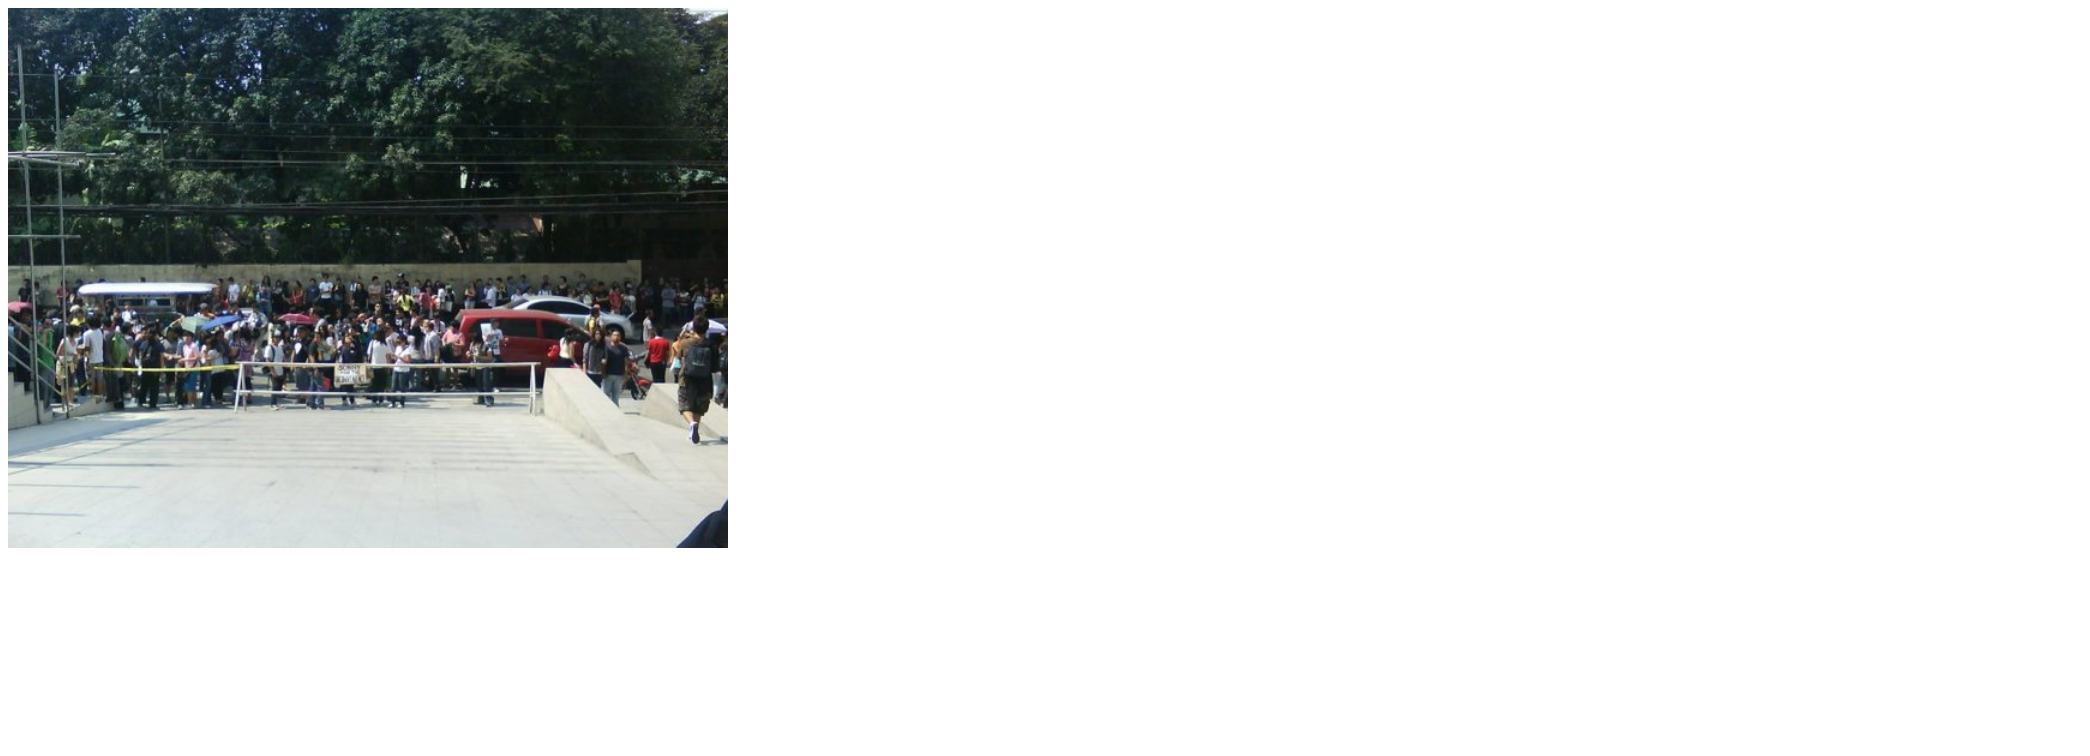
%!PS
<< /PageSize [2090 756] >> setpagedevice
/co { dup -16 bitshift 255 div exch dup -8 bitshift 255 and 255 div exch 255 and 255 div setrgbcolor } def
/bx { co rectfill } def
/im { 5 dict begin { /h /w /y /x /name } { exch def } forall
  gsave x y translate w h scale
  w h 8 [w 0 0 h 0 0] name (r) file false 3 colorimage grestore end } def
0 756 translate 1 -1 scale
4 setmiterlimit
0 0 2090 756 16#FFFFFF bx
(media/1.raw) 8 8 720 540 im
showpage
